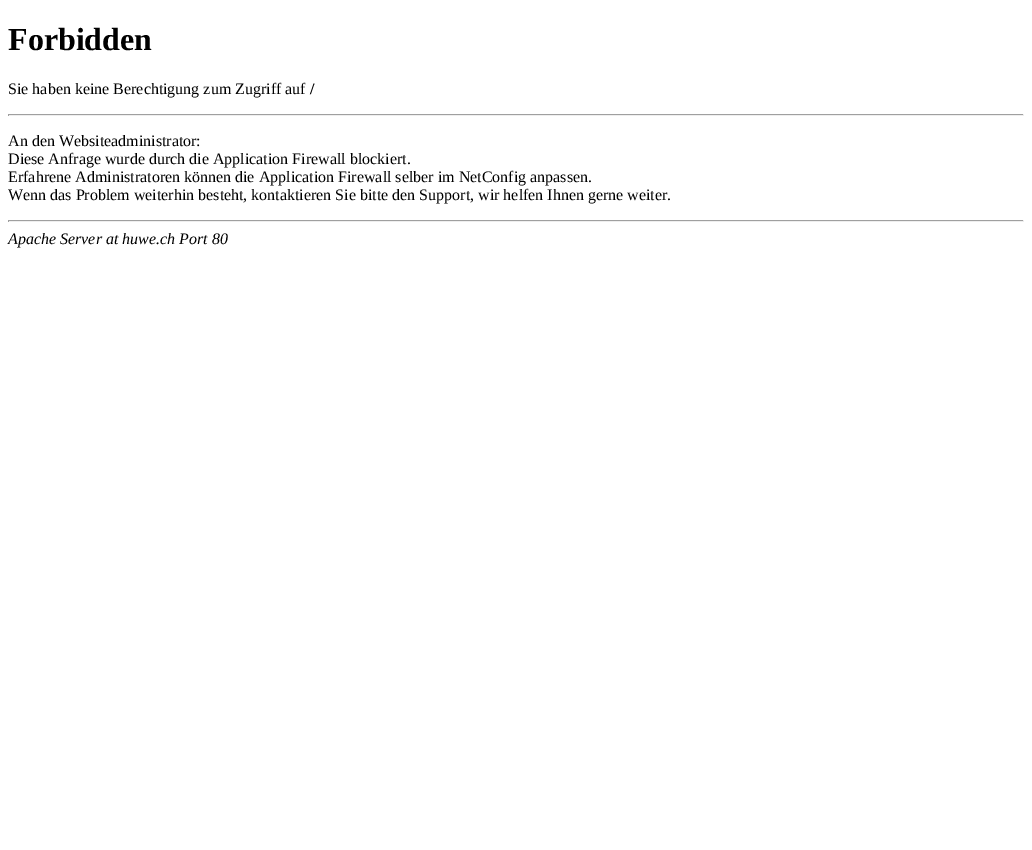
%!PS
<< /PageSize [1032 850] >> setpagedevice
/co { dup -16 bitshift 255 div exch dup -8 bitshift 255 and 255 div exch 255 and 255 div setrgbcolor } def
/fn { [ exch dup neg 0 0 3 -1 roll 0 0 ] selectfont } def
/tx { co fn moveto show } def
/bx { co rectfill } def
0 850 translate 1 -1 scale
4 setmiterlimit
0 0 1032 850 16#FFFFFF bx
8 114 1016 1 16#9F9F9F bx
1023 114 1 2 16#EEEEEE bx
8 115 1016 1 16#EEEEEE bx
8 114 1 2 16#9F9F9F bx
8 220 1016 1 16#9F9F9F bx
1023 220 1 2 16#EEEEEE bx
8 221 1016 1 16#EEEEEE bx
8 220 1 2 16#9F9F9F bx
(Forbidden) 8 50 /LiberationSerif-Bold 32 16#000000 tx
(Sie haben keine Berechtigung zum Zugriff auf) 8 94 /LiberationSerif-Regular 16 16#000000 tx
(/) 310 94 /LiberationSerif-Bold 16 16#000000 tx
(An den Websiteadministrator:) 8 146 /LiberationSerif-Regular 16 16#000000 tx
(Diese Anfrage wurde durch die Application Firewall blockiert.) 8 164 /LiberationSerif-Regular 16 16#000000 tx
(Erfahrene Administratoren können die Application Firewall selber im NetConfig anpassen.) 8 182 /LiberationSerif-Regular 16 16#000000 tx
(Wenn das Problem weiterhin besteht, kontaktieren Sie bitte den Support, wir helfen Ihnen gerne weiter.) 8 200 /LiberationSerif-Regular 16 16#000000 tx
(Apache Server at huwe.ch Port 80) 8 244 /LiberationSerif-Italic 16 16#000000 tx
showpage
